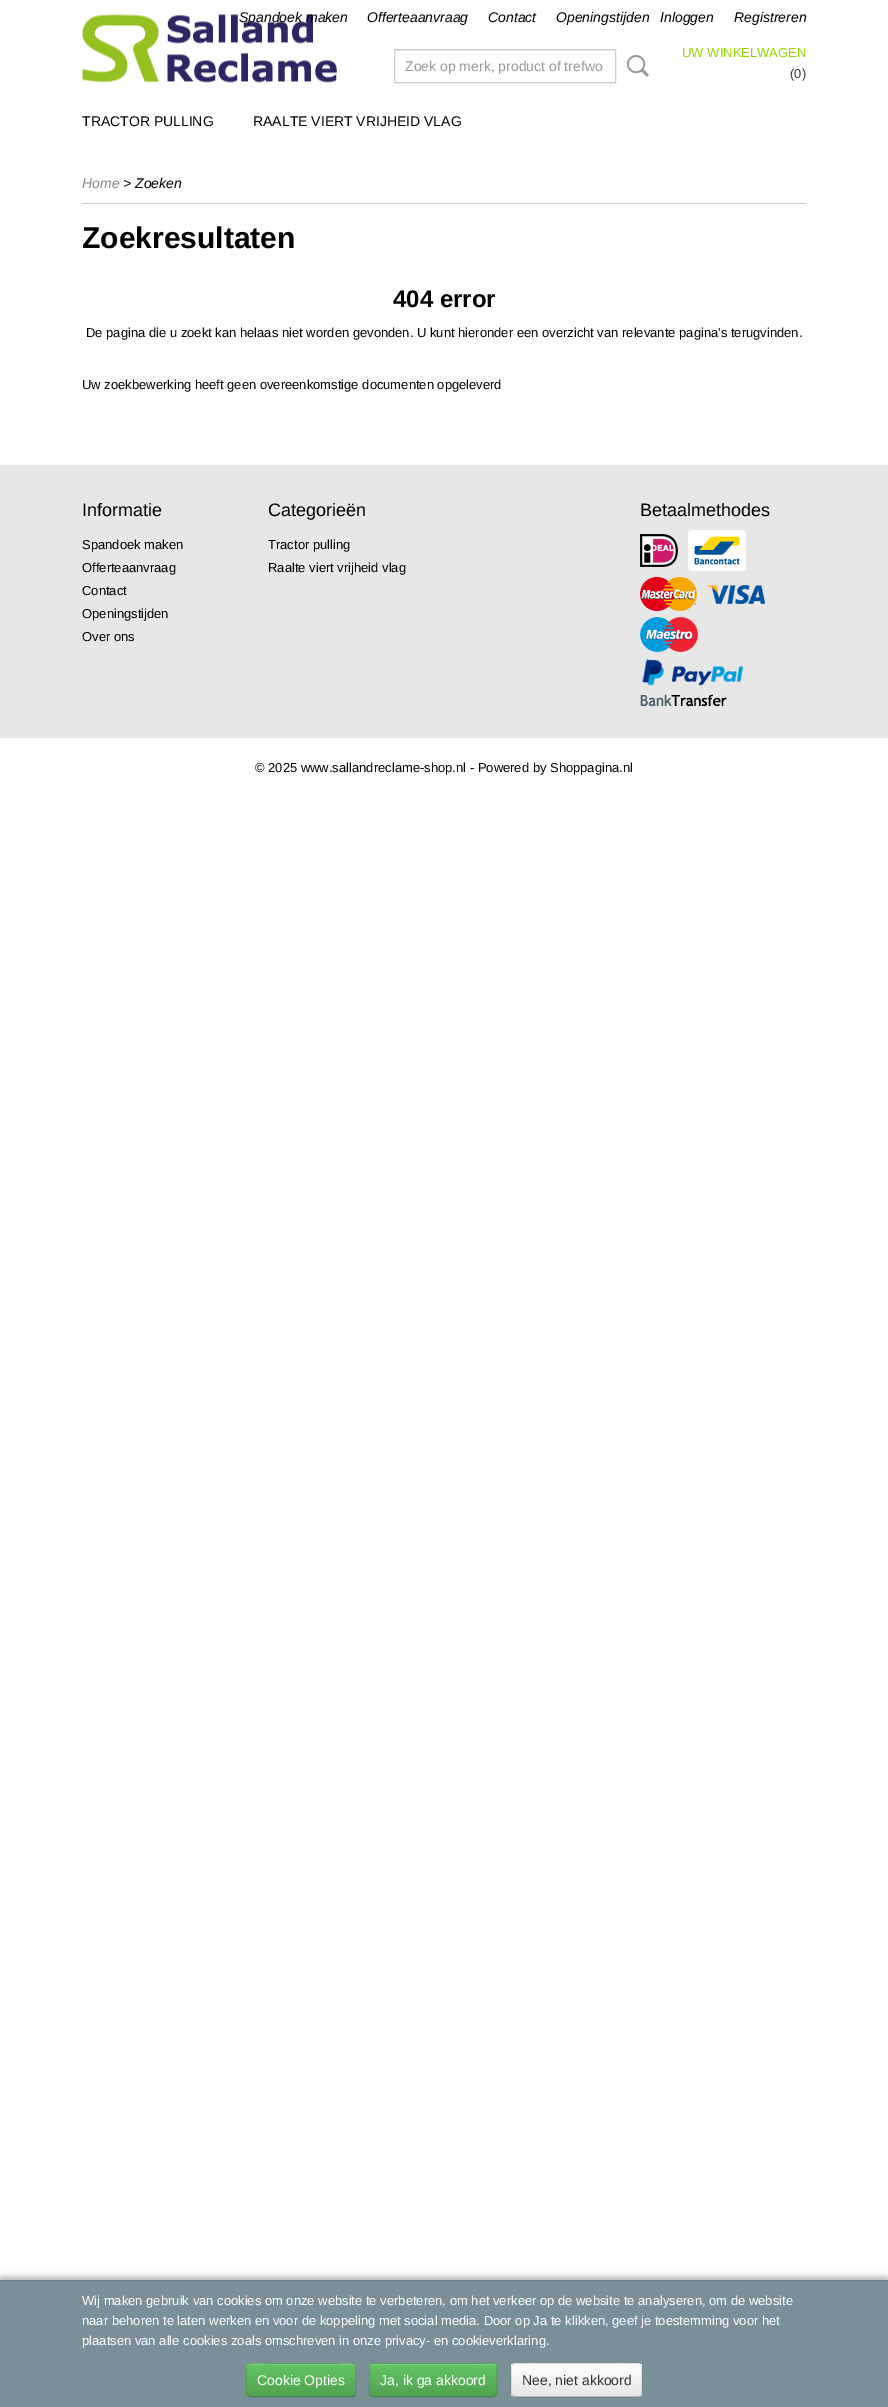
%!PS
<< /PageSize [888 2407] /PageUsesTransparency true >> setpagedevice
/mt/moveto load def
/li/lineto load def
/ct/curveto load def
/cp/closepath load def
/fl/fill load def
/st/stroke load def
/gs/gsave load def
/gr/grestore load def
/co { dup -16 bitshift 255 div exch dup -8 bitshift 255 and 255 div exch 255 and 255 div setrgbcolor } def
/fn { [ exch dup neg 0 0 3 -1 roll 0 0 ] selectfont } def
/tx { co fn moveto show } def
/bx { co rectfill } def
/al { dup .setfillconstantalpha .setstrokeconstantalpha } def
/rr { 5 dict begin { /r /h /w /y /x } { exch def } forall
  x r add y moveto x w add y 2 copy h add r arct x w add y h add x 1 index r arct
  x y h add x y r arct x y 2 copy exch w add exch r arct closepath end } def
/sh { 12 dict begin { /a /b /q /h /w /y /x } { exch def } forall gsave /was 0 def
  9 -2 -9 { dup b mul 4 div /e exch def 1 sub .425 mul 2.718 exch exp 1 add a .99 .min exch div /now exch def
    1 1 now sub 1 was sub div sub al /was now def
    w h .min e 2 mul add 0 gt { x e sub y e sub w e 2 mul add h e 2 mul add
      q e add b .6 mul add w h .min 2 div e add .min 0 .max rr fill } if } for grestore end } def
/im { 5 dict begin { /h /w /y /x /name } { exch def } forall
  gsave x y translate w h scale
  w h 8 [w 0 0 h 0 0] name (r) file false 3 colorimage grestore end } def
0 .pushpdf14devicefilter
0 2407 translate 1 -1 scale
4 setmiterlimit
0 0 888 2407 16#FFFFFF bx
(media/1.raw) 82 14 255 69 im
395 50 220 1 16#ECECEC bx
16#CCCCCC co
394.5 49.5 221 33 rectstroke
(media/2.raw) 627 55 22 22 im
82 203 724 1 16#CCCCCC bx
0 465 888 273 16#E8E7E7 bx
(media/3.raw) 640 534 38 33 im
(media/4.raw) 688 530 58 41 im
(media/5.raw) 640 577 57 34 im
(media/6.raw) 707 585 58 19 im
(media/7.raw) 640 617 58 35 im
(media/8.raw) 642 659 102 27 im
(media/9.raw) 640 694 87 13 im
16#000000 co
0 2277 888 127 0 3.5 .3 sh
0 2281 888 126 16#7A8F98 bx
0 2280 888 1 16#697E87 bx
16#5BB75B co
246 2363 110 34 4 rr fl
gs
246 2363 110 34 4 rr clip newpath
gs 246 2364 mt 356 2364 li 356 2396 li 246 2396 li cp clip newpath
<< /ShadingType 2 /ColorSpace /DeviceRGB /Coords [301 2364 301 2396] /Extend [true true] /Function << /FunctionType 2 /Domain [0 1] /C0 [.384 .769 .384] /C1 [.318 .639 .318] /N 1 >> >> shfill gr
gr
0.2 al
16#FFFFFF co
250 2365 mt 352 2365 li 354 2365 355 2366 355 2368 ct 355 2359 337 2364 335 2364 ct 267 2364 li 265 2364 247 2359 247 2368 ct 247 2366 248 2365 250 2365 ct cp fl
0.25 al
16#000000 co
354.5 2395.5 mt 352.5 2396.5 li 267 2396.5 li 250 2396.5 li 247.5 2395.5 li st
0.1 al
247.5 2395.5 mt 245 2393 246.5 2387 246.5 2384.5 ct 246.5 2360 242 2363.5 267 2363.5 ct 335 2363.5 li 360 2363.5 355.5 2360 355.5 2384.5 ct 355.5 2387 357 2393 354.5 2395.5 ct st
1 al
16#5BB75B co
369 2363 128 34 4 rr fl
gs
369 2363 128 34 4 rr clip newpath
gs 369 2364 mt 497 2364 li 497 2396 li 369 2396 li cp clip newpath
<< /ShadingType 2 /ColorSpace /DeviceRGB /Coords [433 2364 433 2396] /Extend [true true] /Function << /FunctionType 2 /Domain [0 1] /C0 [.384 .769 .384] /C1 [.318 .639 .318] /N 1 >> >> shfill gr
gr
16#81CF81 co
373 2365 mt 493 2365 li 495 2365 496 2366 496 2368 ct 496 2366 496 2364 494 2364 ct 373 2364 li 371 2364 370 2366 370 2368 ct 370 2366 371 2365 373 2365 ct cp fl
0.25 al
16#000000 co
495.5 2395.5 mt 495 2396 494 2396.5 493 2396.5 ct 373 2396.5 li 372 2396.5 371 2396 370.5 2395.5 ct st
0.1 al
370.5 2395.5 mt 368.5 2393 369.5 2383 369.5 2380 ct 369.5 2358.5 367.5 2363.5 393 2363.5 ct 473 2363.5 li 498.5 2363.5 496.5 2358.5 496.5 2380 ct 496.5 2383 497.5 2393 495.5 2395.5 ct st
1 al
16#F5F5F5 co
511 2363 131 34 4 rr fl
gs
511 2363 131 34 4 rr clip newpath
gs 511 2364 mt 642 2364 li 642 2396 li 511 2396 li cp clip newpath
<< /ShadingType 2 /ColorSpace /DeviceRGB /Coords [577 2364 577 2396] /Extend [true true] /Function << /FunctionType 2 /Domain [0 1] /C0 [1 1 1] /C1 [.902 .902 .902] /N 1 >> >> shfill gr
gr
0.25 al
16#000000 co
640.5 2395.5 mt 640 2396 639 2396.5 638 2396.5 ct 515 2396.5 li 514 2396.5 513 2396 512.5 2395.5 ct st
0.1 al
512.5 2395.5 mt 510 2393 511.5 2387 511.5 2384.5 ct 511.5 2358.5 507 2363.5 535.5 2363.5 ct 617.5 2363.5 li 646 2363.5 641.5 2358.5 641.5 2384.5 ct 641.5 2387 643 2393 640.5 2395.5 ct st
1 al
(Spandoek maken) 239 22 /LiberationSans-Italic 14 16#000000 tx
(Offerteaanvraag) 367 22 /LiberationSans-Italic 14 16#000000 tx
(Contact) 488 22 /LiberationSans-Italic 14 16#000000 tx
(Openingstijden) 556 22 /LiberationSans-Italic 14 16#000000 tx
(Inloggen) 660 22 /LiberationSans-Italic 14 16#000000 tx
(Registreren) 734 22 /LiberationSans-Italic 14 16#000000 tx
(UW WINKELWAGEN) 682 57 /LiberationSans-Regular 13 16#93D500 tx
(\(0\)) 790 78 /LiberationSans-Regular 13 16#333333 tx
(Zoek op merk, product of trefwo) 405 71 /LiberationSans-Regular 14 16#999999 tx
(TRACTOR PULLING) 82 126 /LiberationSans-Regular 14 16#000000 tx
(RAALTE VIERT VRIJHEID VLAG) 253 126 /LiberationSans-Regular 14 16#000000 tx
(Home) 82 188 /LiberationSans-Italic 14 16#848484 tx
(> Zoeken) 123 188 /LiberationSans-Italic 14 16#000000 tx
(Zoekresultaten) 82 248 /LiberationSans-Bold 30 16#000000 tx
(404 error) 393 307 /LiberationSans-Bold 24 16#000000 tx
(De pagina die u zoekt kan helaas niet worden gevonden. U kunt hieronder een overzicht van relevante pagina's terugvinden.) 86 337 /LiberationSans-Regular 13 16#000000 tx
(Uw zoekbewerking heeft geen overeenkomstige documenten opgeleverd) 82 389 /LiberationSans-Regular 13 16#000000 tx
(Informatie) 82 516 /LiberationSans-Regular 18 16#000000 tx
(Spandoek maken) 82 549 /LiberationSans-Regular 13 16#000000 tx
(Offerteaanvraag) 82 572 /LiberationSans-Regular 13 16#000000 tx
(Contact) 82 595 /LiberationSans-Regular 13 16#000000 tx
(Openingstijden) 82 618 /LiberationSans-Regular 13 16#000000 tx
(Over ons) 82 641 /LiberationSans-Regular 13 16#000000 tx
(Categorieën) 268 516 /LiberationSans-Regular 18 16#000000 tx
(Tractor pulling) 268 549 /LiberationSans-Regular 13 16#000000 tx
(Raalte viert vrijheid vlag) 268 572 /LiberationSans-Regular 13 16#000000 tx
(Betaalmethodes) 640 516 /LiberationSans-Regular 18 16#000000 tx
(© 2025 www.sallandreclame-shop.nl - Powered by Shoppagina.nl) 255 772 /LiberationSans-Regular 13 16#000000 tx
(Wij maken gebruik van cookies om onze website te verbeteren, om het verkeer op de website te analyseren, om de website) 82 2305 /LiberationSans-Regular 13 16#FFFFFF tx
(naar behoren te laten werken en voor de koppeling met social media. Door op Ja te klikken, geef je toestemming voor het) 82 2325 /LiberationSans-Regular 13 16#FFFFFF tx
(plaatsen van alle cookies zoals omschreven in onze privacy- en cookieverklaring.) 82 2345 /LiberationSans-Regular 13 16#FFFFFF tx
(Cookie Opties) 257 2385 /LiberationSans-Regular 14 16#FFFFFF tx
(Ja, ik ga akkoord) 380 2385 /LiberationSans-Regular 14 16#FFFFFF tx
(Nee, niet akkoord) 522 2385 /LiberationSans-Regular 14 16#333333 tx
.poppdf14devicefilter showpage
